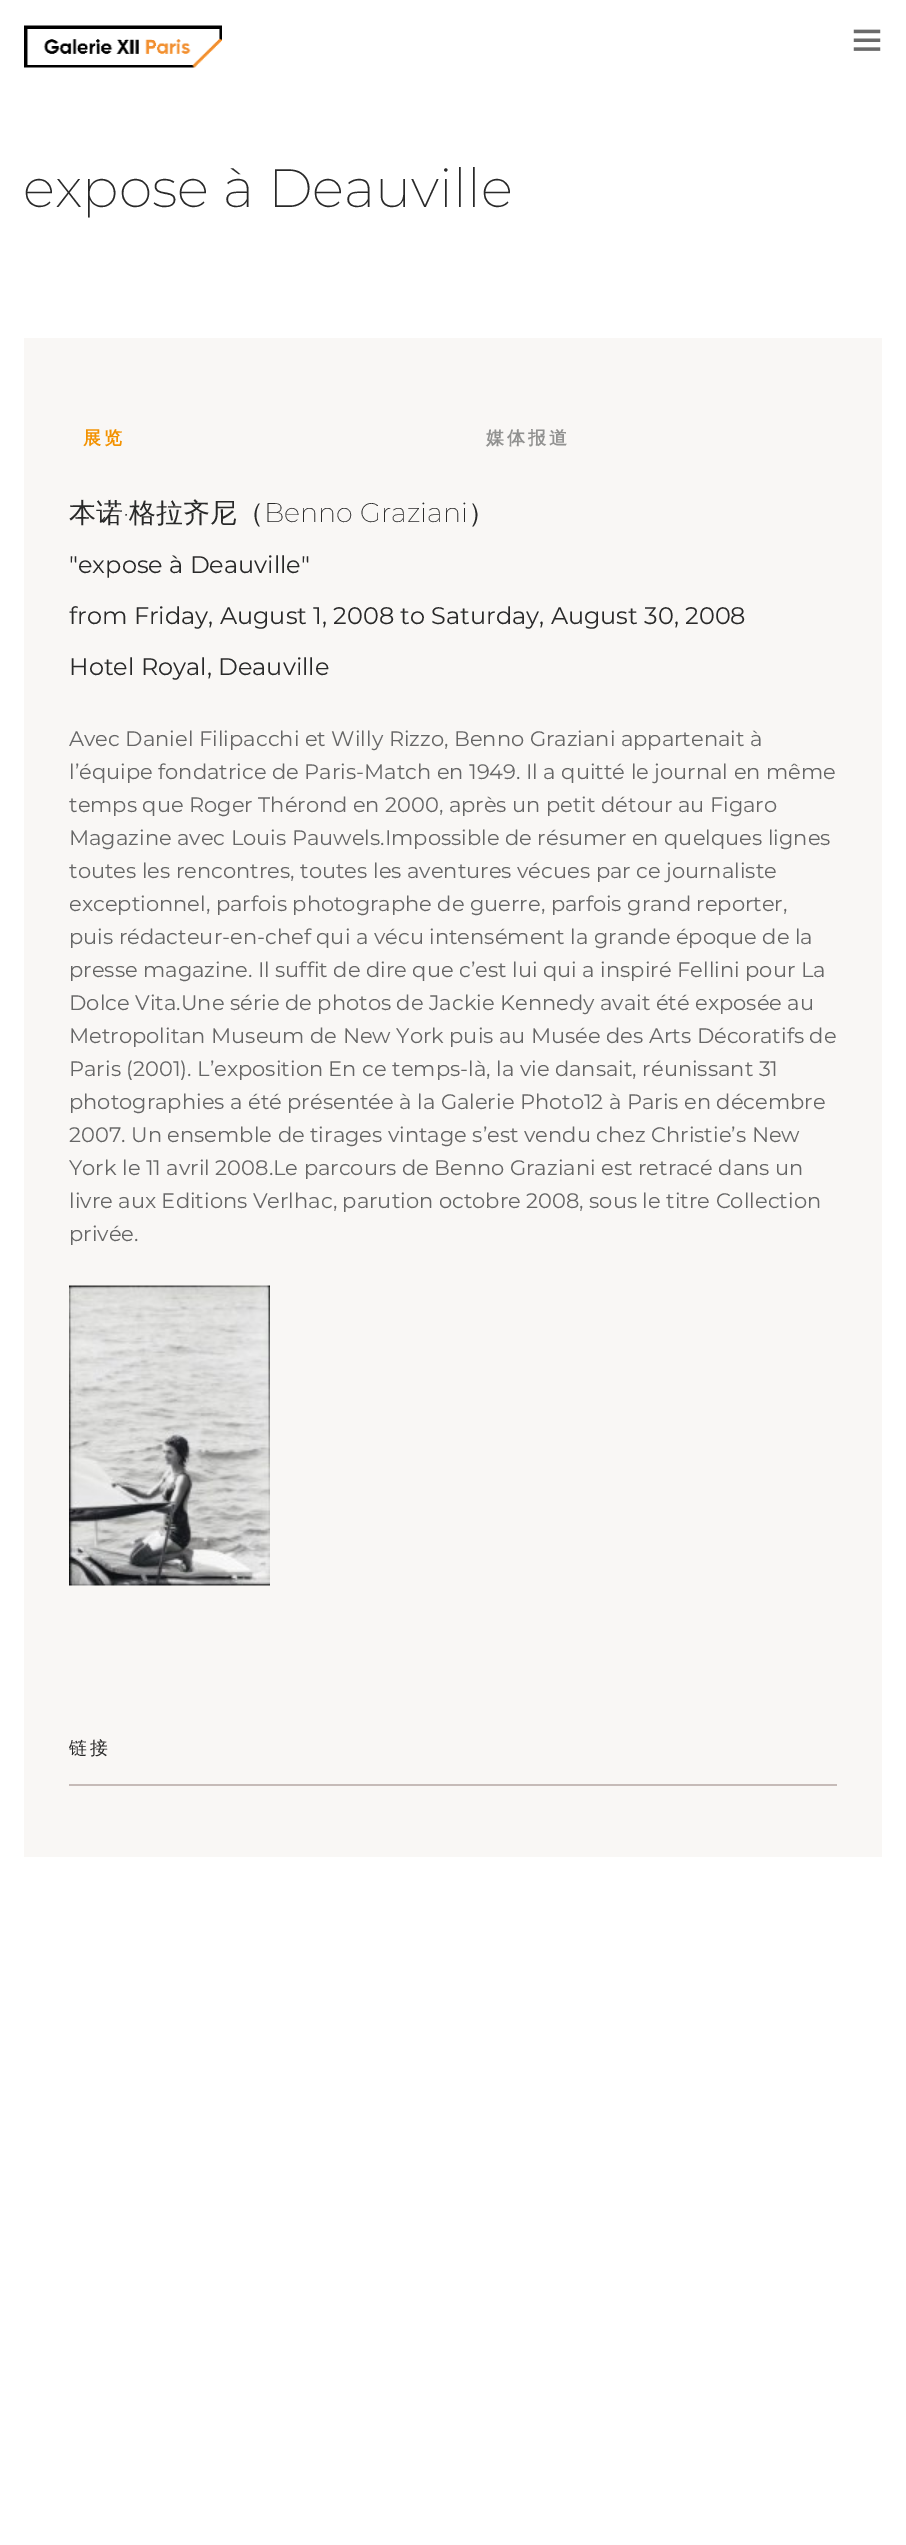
%!PS
<< /PageSize [906 2545] >> setpagedevice
/mt/moveto load def
/co { dup -16 bitshift 255 div exch dup -8 bitshift 255 and 255 div exch 255 and 255 div setrgbcolor } def
/fn { [ exch dup neg 0 0 3 -1 roll 0 0 ] selectfont } def
/tx { co fn moveto show } def
/bx { co rectfill } def
/im { 5 dict begin { /h /w /y /x /name } { exch def } forall
  gsave x y translate w h scale
  w h 8 [w 0 0 h 0 0] name (r) file false 3 colorimage grestore end } def
0 2545 translate 1 -1 scale
4 setmiterlimit
0 0 906 2545 16#FFFFFF bx
(media/1.raw) 24 25 198 43 im
(media/2.raw) 853 29 28 22 im
24 338 858 1519 16#F9F7F5 bx
(media/3.raw) 69 1285 201 301 im
69 1784 768 2 16#C6BBB8 bx
(expose à Deauville) 23 207 /Montserrat-ExtraLight 54 16#292929 tx
/WenQuanYiZenHei-Bold 18 fn
16#F39200 co
83 444 mt 3 0 (展览) ashow
16#929291 co
486 444 mt 3 0 (媒体报道) ashow
(本诺) 69 522 /WenQuanYiZenHei-Medium 27 16#292929 tx
(·) 123 522 /Montserrat-ExtraLight 27 16#292929 tx
(格拉齐尼（) 129 522 /WenQuanYiZenHei-Medium 27 16#292929 tx
(Benno Graziani) 264 522 /Montserrat-ExtraLight 27 16#292929 tx
(）) 468 522 /WenQuanYiZenHei-Medium 27 16#292929 tx
("expose à Deauville") 69 573 /Montserrat-Regular 24 16#292929 tx
(from Friday, August 1, 2008 to Saturday, August 30, 2008) 69 624 /Montserrat-Regular 24 16#292929 tx
(Hotel Royal, Deauville) 69 675 /Montserrat-Regular 24 16#292929 tx
(Avec Daniel Filipacchi et Willy Rizzo, Benno Graziani appartenait à) 69 746 /Montserrat-Regular 21 16#666666 tx
(l’équipe fondatrice de Paris-Match en 1949. Il a quitté le journal en même) 69 779 /Montserrat-Regular 21 16#666666 tx
(temps que Roger Thérond en 2000, après un petit détour au Figaro) 69 812 /Montserrat-Regular 21 16#666666 tx
(Magazine avec Louis Pauwels.Impossible de résumer en quelques lignes) 69 845 /Montserrat-Regular 21 16#666666 tx
(toutes les rencontres, toutes les aventures vécues par ce journaliste) 69 878 /Montserrat-Regular 21 16#666666 tx
(exceptionnel, parfois photographe de guerre, parfois grand reporter,) 69 911 /Montserrat-Regular 21 16#666666 tx
(puis rédacteur-en-chef qui a vécu intensément la grande époque de la) 69 944 /Montserrat-Regular 21 16#666666 tx
(presse magazine. Il suffit de dire que c’est lui qui a inspiré Fellini pour La) 69 977 /Montserrat-Regular 21 16#666666 tx
(Dolce Vita.Une série de photos de Jackie Kennedy avait été exposée au) 69 1010 /Montserrat-Regular 21 16#666666 tx
(Metropolitan Museum de New York puis au Musée des Arts Décoratifs de) 69 1043 /Montserrat-Regular 21 16#666666 tx
(Paris \(2001\). L’exposition En ce temps-là, la vie dansait, réunissant 31) 69 1076 /Montserrat-Regular 21 16#666666 tx
(photographies a été présentée à la Galerie Photo12 à Paris en décembre) 69 1109 /Montserrat-Regular 21 16#666666 tx
(2007. Un ensemble de tirages vintage s’est vendu chez Christie’s New) 69 1142 /Montserrat-Regular 21 16#666666 tx
(York le 11 avril 2008.Le parcours de Benno Graziani est retracé dans un) 69 1175 /Montserrat-Regular 21 16#666666 tx
(livre aux Editions Verlhac, parution octobre 2008, sous le titre Collection) 69 1208 /Montserrat-Regular 21 16#666666 tx
(privée.) 69 1241 /Montserrat-Regular 21 16#666666 tx
/WenQuanYiZenHei-Medium 18 fn
16#292929 co
69 1754 mt 3 0 (链接) ashow
showpage
